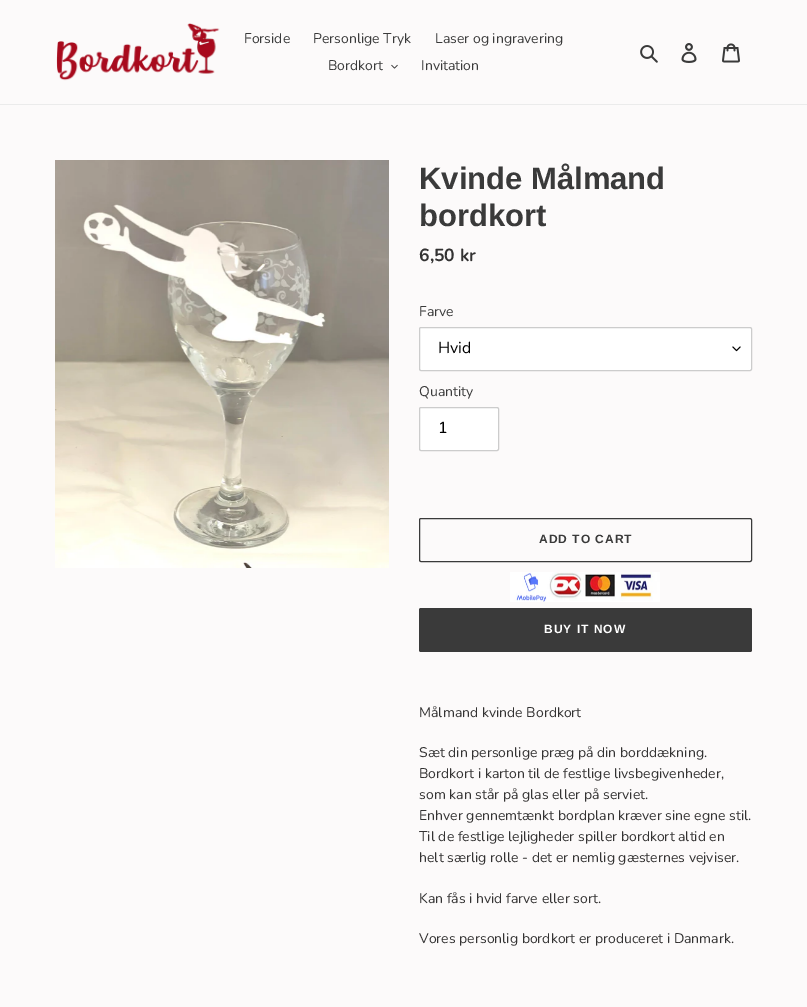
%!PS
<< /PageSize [807 1007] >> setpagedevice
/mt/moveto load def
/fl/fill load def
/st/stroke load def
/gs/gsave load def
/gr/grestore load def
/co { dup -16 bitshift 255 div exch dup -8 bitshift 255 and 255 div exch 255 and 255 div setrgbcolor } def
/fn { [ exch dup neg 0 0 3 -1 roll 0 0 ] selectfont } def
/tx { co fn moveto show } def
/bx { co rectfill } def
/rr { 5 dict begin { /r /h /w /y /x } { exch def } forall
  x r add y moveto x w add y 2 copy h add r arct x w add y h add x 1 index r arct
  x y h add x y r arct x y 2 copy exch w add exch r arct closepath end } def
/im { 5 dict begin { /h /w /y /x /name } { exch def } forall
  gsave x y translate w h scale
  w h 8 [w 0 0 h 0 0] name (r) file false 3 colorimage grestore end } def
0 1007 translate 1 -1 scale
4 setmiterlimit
0 0 807 1007 16#FCFAFA bx
0 104 807 1 16#EBEBEB bx
(media/1.raw) 56 23 164 58 im
(media/2.raw) 391 64 7 5 im
(media/3.raw) 640 45 18 18 im
(media/4.raw) 681 43 16 20 im
(media/5.raw) 722 43 18 20 im
(media/6.raw) 55 160 334 408 im
16#FFFFFF co
419 327 333 44 2 rr fl
(media/7.raw) 732 346 9 6 im
16#CCCCCC co
419.5 327.5 332 43 1.5 rr st
16#FFFFFF co
419.5 407.5 79 43 1.5 rr gs fl gr
16#CCCCCC co
st
16#3A3A3A co
419.5 518.5 332 43 1.5 rr st
(media/8.raw) 510 572 150 30 im
419 608 333 44 2 rr fl
(Forside) 244 43 /Nunito-Regular 14 16#3A3A3A tx
(Personlige Tryk) 313 43 /Nunito-Regular 14 16#3A3A3A tx
(Laser og ingravering) 435 43 /Nunito-Regular 14 16#3A3A3A tx
(Bordkort) 328 70 /Nunito-Regular 14 16#3A3A3A tx
(Invitation) 421 70 /Nunito-Regular 14 16#3A3A3A tx
(Kvinde Målmand) 419 189 /LiberationSans-Bold 31 16#3A3A3A tx
(bordkort) 419 226 /LiberationSans-Bold 31 16#3A3A3A tx
(6,50 kr) 419 261 /Nunito-Bold 17.5 16#333232 tx
(Farve) 419 316 /Nunito-Regular 14 16#3A3A3A tx
(Hvid) 438 353 /Nunito-Regular 16 16#000000 tx
(Quantity) 419 396 /Nunito-Regular 14 16#3A3A3A tx
(1) 438 433 /Nunito-Regular 16 16#000000 tx
/LiberationSans-Bold 12 fn
16#3A3A3A co
539 543 mt 1 0 (ADD TO CART) ashow
16#FFFFFF co
544 633 mt 1 0 (BUY IT NOW) ashow
(Målmand kvinde Bordkort) 419 717 /Nunito-Regular 14 16#333232 tx
(Sæt din personlige præg på din borddækning.) 419 757 /Nunito-Regular 14 16#333232 tx
(Bordkort i karton til de festlige livsbegivenheder,) 419 778 /Nunito-Regular 14 16#333232 tx
(som kan står på glas eller på serviet.) 419 799 /Nunito-Regular 14 16#333232 tx
(Enhver gennemtænkt bordplan kræver sine egne stil.) 419 820 /Nunito-Regular 14 16#333232 tx
(Til de festlige lejligheder spiller bordkort altid en) 419 841 /Nunito-Regular 14 16#333232 tx
(helt særlig rolle - det er nemlig gæsternes vejviser.) 419 862 /Nunito-Regular 14 16#333232 tx
(Kan fås i hvid farve eller sort.) 419 903 /Nunito-Regular 14 16#333232 tx
(Vores personlig bordkort er produceret i Danmark.) 419 943 /Nunito-Regular 14 16#333232 tx
showpage
